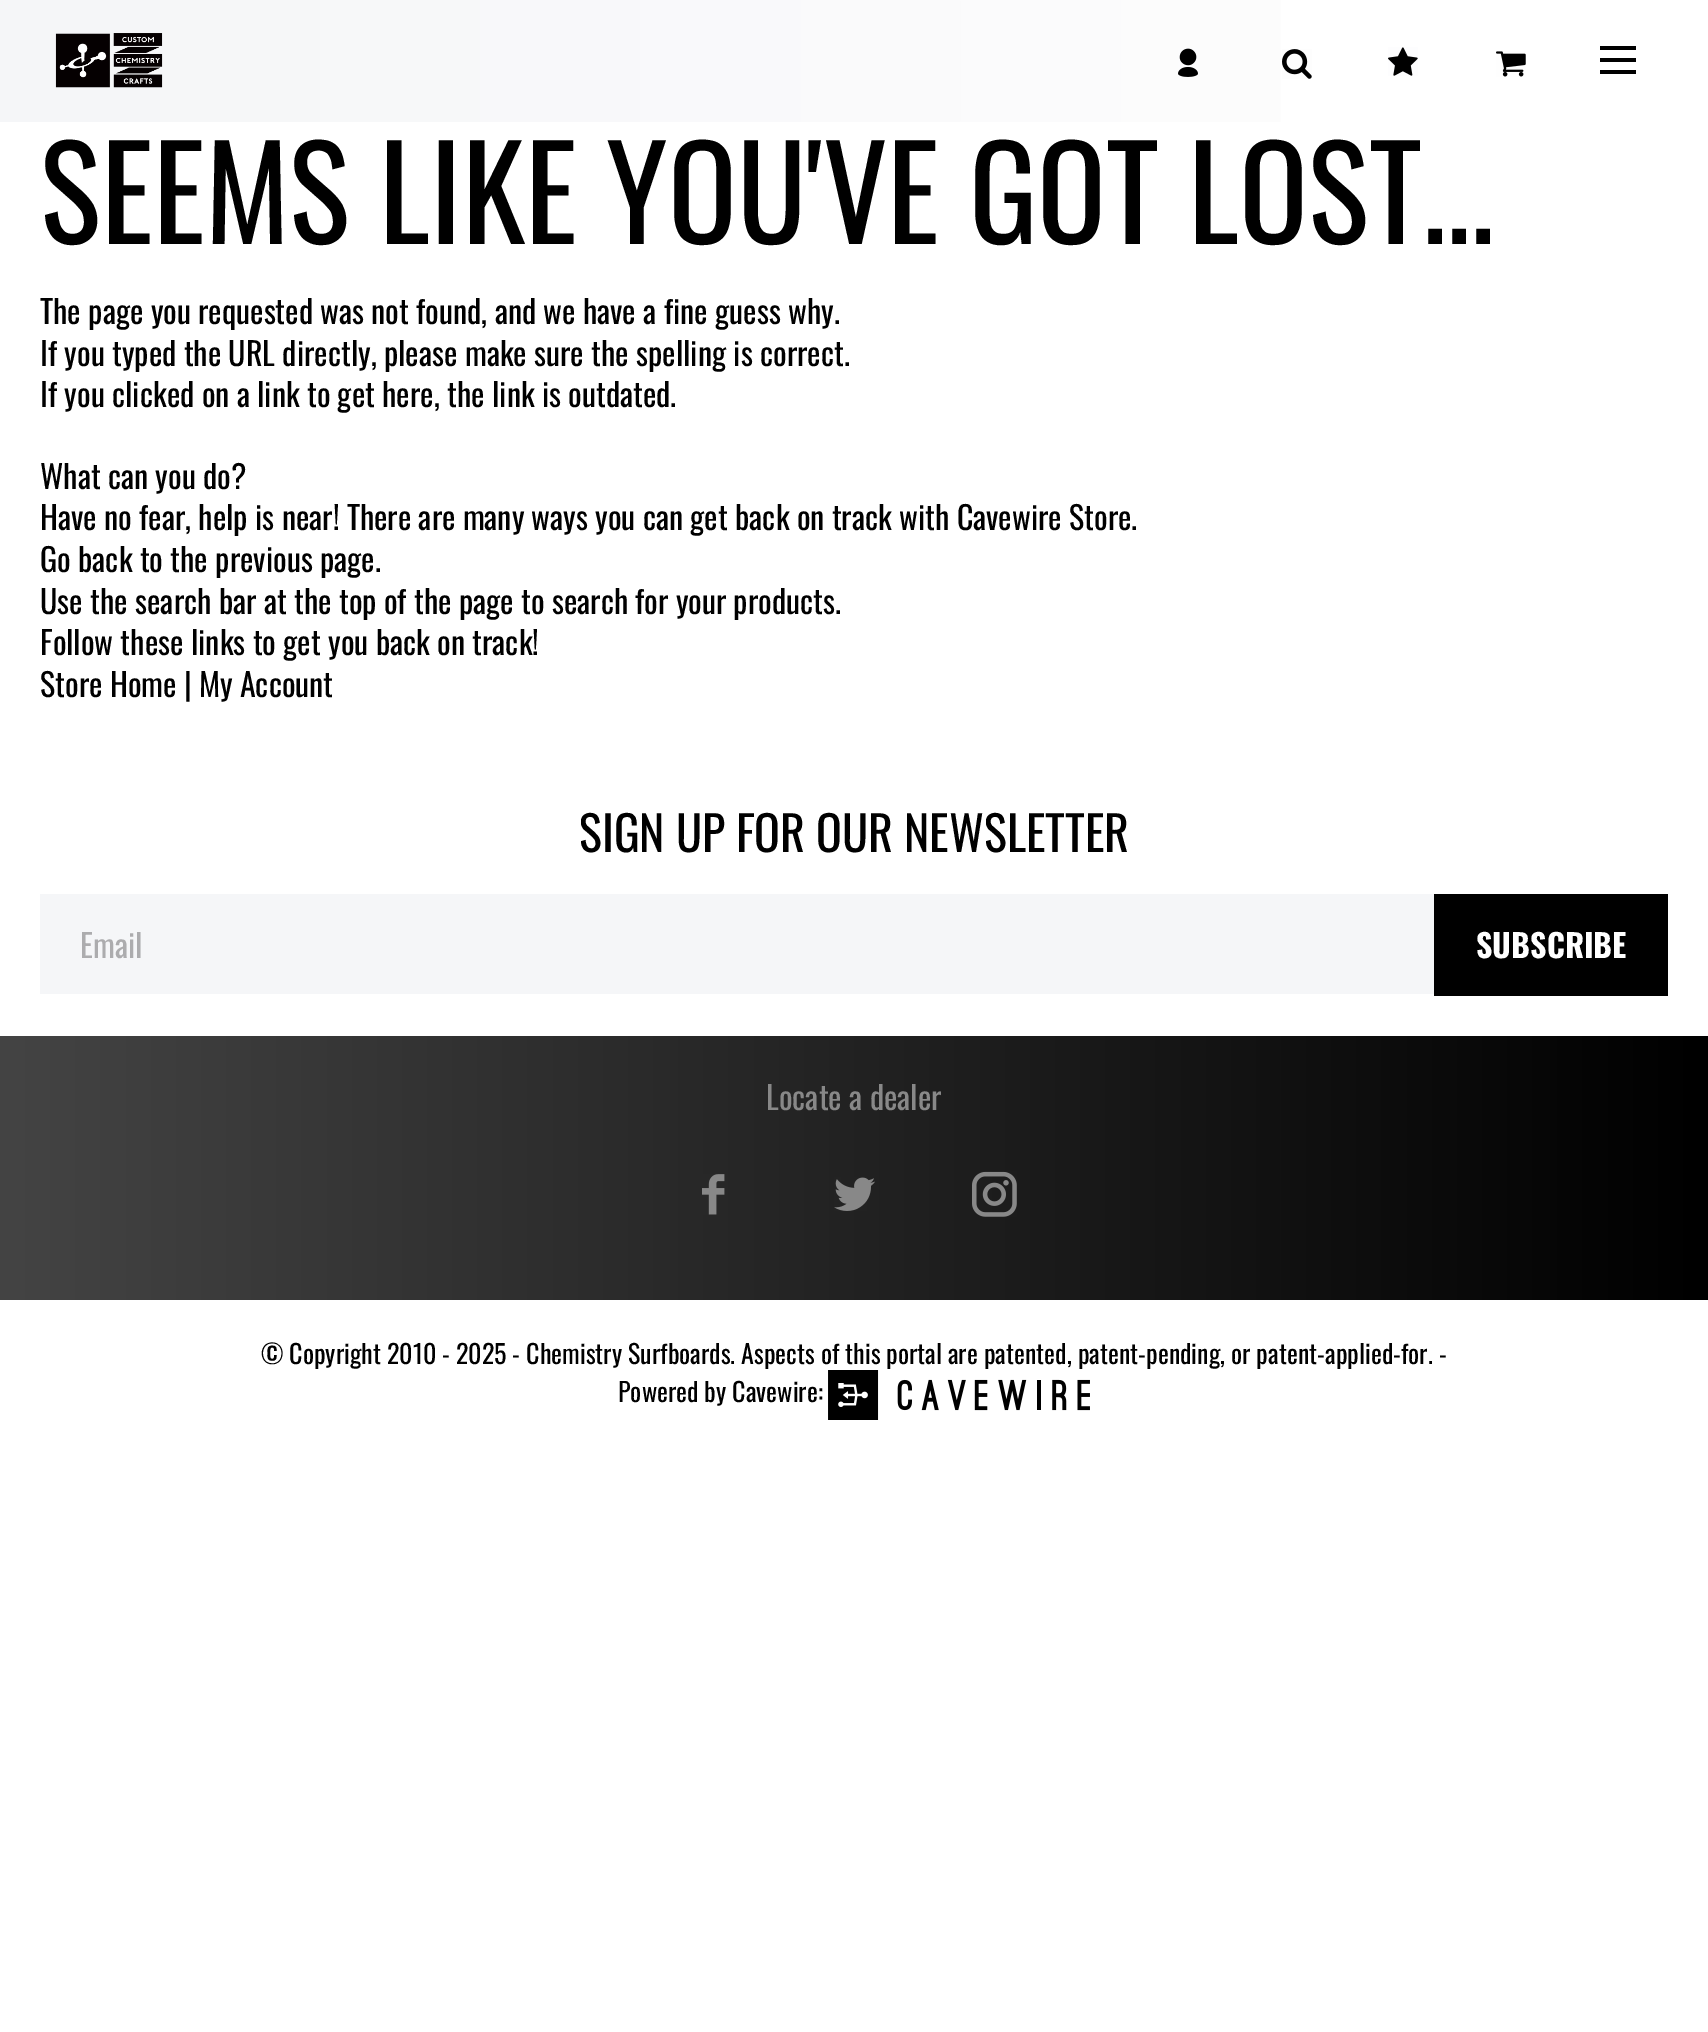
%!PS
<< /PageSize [1708 2032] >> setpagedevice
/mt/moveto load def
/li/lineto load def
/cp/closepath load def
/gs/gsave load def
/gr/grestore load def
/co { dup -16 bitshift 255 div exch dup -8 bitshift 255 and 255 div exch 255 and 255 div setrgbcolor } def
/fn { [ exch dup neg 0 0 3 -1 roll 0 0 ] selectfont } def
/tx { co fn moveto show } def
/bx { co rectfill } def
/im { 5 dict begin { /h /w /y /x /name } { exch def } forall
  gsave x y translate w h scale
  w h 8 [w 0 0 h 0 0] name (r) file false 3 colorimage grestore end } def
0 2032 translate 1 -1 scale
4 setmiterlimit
0 0 1708 2032 16#FFFFFF bx
gs 0 0 mt 1281 0 li 1281 122 li 0 122 li cp clip newpath
<< /ShadingType 2 /ColorSpace /DeviceRGB /Coords [0 61 1708 61] /Extend [true true] /Function << /FunctionType 2 /Domain [0 1] /C0 [.961 .965 .973] /C1 [1 1 1] /N 1 >> >> shfill gr
(media/1.raw) 55 33 108 55 im
(media/2.raw) 1178 48 20 29 im
(media/3.raw) 1282 49 30 30 im
(media/4.raw) 1388 47 30 29 im
(media/5.raw) 1496 51 30 26 im
1600 46 36 4 16#000000 bx
1600 58 36 4 16#000000 bx
1600 70 36 4 16#000000 bx
40 894 1394 100 16#F5F6F8 bx
1434 894 234 102 16#000000 bx
gs 0 1036 mt 1708 1036 li 1708 1300 li 0 1300 li cp clip newpath
<< /ShadingType 2 /ColorSpace /DeviceRGB /Coords [0 1168 1708 1168] /Extend [true true] /Function << /FunctionType 2 /Domain [0 1] /C0 [.267 .267 .267] /C1 [0 0 0] /N 1 >> >> shfill gr
(media/6.raw) 702 1174 23 41 im
(media/7.raw) 834 1177 41 34 im
(media/8.raw) 972 1171 45 46 im
(media/9.raw) 828 1370 262 50 im
(SEEMS LIKE YOU'VE GOT LOST...) 40 244 /Oswald-Regular 128 16#000000 tx
(The page you requested was not found, and we have a fine guess why.) 40 324 /Oswald-Regular 32 16#000000 tx
(If you typed the URL directly, please make sure the spelling is correct.) 40 366 /Oswald-Regular 32 16#000000 tx
(If you clicked on a link to get here, the link is outdated.) 40 407 /Oswald-Regular 32 16#000000 tx
(What can you do?) 40 489 /Oswald-Regular 32 16#000000 tx
(Have no fear, help is near! There are many ways you can get back on track with Cavewire Store.) 40 530 /Oswald-Regular 32 16#000000 tx
(Go back to the previous page.) 40 572 /Oswald-Regular 32 16#000000 tx
(Use the search bar at the top of the page to search for your products.) 40 614 /Oswald-Regular 32 16#000000 tx
(Follow these links to get you back on track!) 40 655 /Oswald-Regular 32 16#000000 tx
(Store Home | My Account) 40 697 /Oswald-Regular 32 16#000000 tx
(SIGN UP FOR OUR NEWSLETTER) 579 852 /Oswald-Regular 48 16#000000 tx
(Email) 80 958 /Oswald-Regular 32 16#ACACAE tx
(SUBSCRIBE) 1476 958 /Oswald-Bold 32 16#FFFFFF tx
(Locate a dealer) 766 1110 /Oswald-Regular 32 16#888888 tx
(© Copyright 2010 - 2025 - Chemistry Surfboards. Aspects of this portal are patented, patent-pending, or patent-applied-for. -) 261 1364 /Oswald-Regular 26 16#000000 tx
(Powered by Cavewire:) 618 1402 /Oswald-Regular 26 16#000000 tx
showpage
